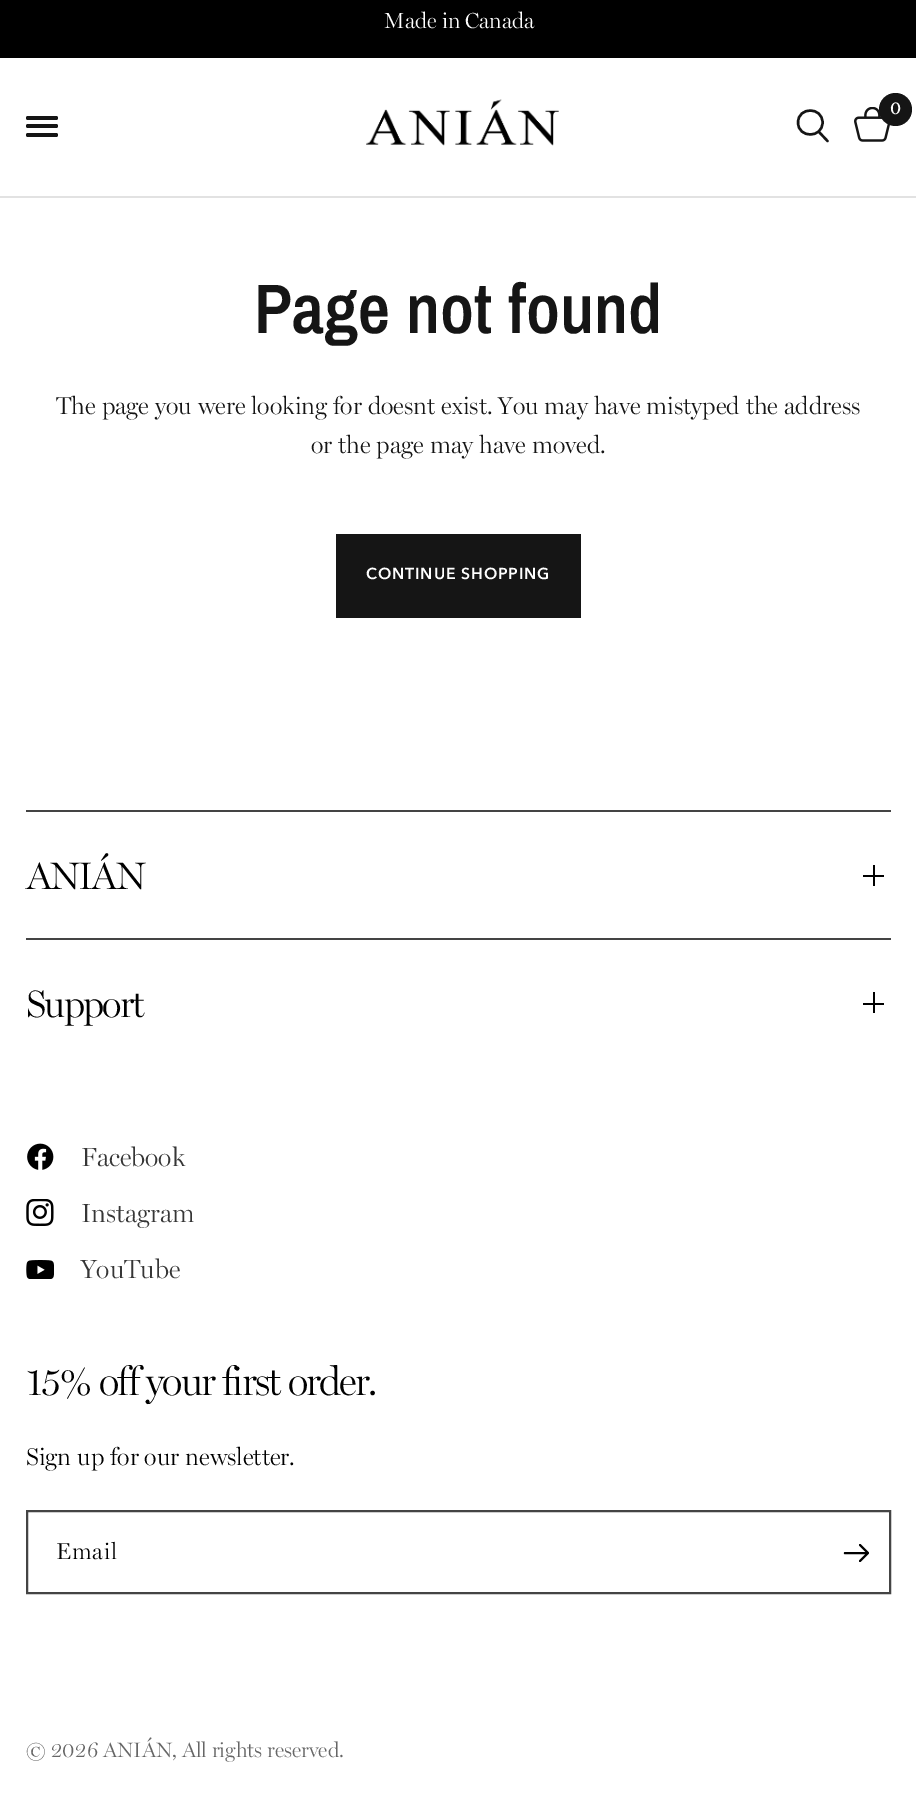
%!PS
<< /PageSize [916 1808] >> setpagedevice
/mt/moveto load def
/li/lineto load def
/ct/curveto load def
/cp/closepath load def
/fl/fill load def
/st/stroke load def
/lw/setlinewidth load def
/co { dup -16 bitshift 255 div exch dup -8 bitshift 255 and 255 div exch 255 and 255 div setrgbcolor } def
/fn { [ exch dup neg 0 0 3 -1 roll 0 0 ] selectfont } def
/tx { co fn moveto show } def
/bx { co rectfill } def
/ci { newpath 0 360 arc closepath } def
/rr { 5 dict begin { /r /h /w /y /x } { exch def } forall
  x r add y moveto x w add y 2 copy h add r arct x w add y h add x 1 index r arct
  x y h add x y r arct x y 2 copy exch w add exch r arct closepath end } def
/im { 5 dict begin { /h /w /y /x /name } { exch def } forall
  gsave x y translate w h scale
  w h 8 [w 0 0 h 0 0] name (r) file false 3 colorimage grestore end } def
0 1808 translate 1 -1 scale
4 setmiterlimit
0 0 916 1808 16#FFFFFF bx
0 0 916 58 16#000000 bx
0 196 916 2 16#E2E2E2 bx
(media/1.raw) 366 99 193 47 im
16#151515 co
2.4 lw
1 setlinecap
1 setlinejoin
819 132 mt 827.5 141 li 822.5 122.5 mt 822.5 138.5 798 138.5 798 122.5 ct 798 106.5 822.5 106.5 822.5 122.5 ct cp st
(media/2.raw) 854 107 36 35 im
895.5 109.5 16.5 ci fl
26 116 32 4 2 rr fl
26 124 32 4 2 rr fl
26 133 32 4 2 rr fl
336 534 245 84 16#151515 bx
26 810 865 2 16#444444 bx
873 865 2 21 16#000000 bx
863 875 21 2 16#000000 bx
26 938 865 2 16#444444 bx
873 992 2 21 16#000000 bx
863 1003 21 2 16#000000 bx
(media/3.raw) 27 1143 27 27 im
(media/4.raw) 26 1199 28 27 im
(media/5.raw) 26 1260 28 19 im
16#444444 co
2 lw
0 setlinecap
0 setlinejoin
27 1511 863 82 rectstroke
16#000000 co
2.1 lw
1 setlinecap
1 setlinejoin
845 1553 mt 866 1553 li 860 1545 mt 868 1553 li 860 1561 li st
(Made in Canada) 384 28 /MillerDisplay-Light 22 16#FFFFFF tx
(0) 890 114 /MillerDisplay-Bold 18 16#FFFFFF tx
(Page not found) 254 333 /ArchivoNarrow-SemiBold 70 16#151515 tx
(The page you were looking for doesnt exist. You may have mistyped the address) 56 414 /MillerDisplay-Light 24.5 16#151515 tx
(or the page may have moved.) 311 453 /MillerDisplay-Light 24.5 16#151515 tx
/AvenirNext-SemiBold 15.75 fn
16#FFFFFF co
366 579 mt .9 0 (CONTINUE SHOPPING) ashow
/MillerDisplay-Light 38.5 fn
16#000000 co
26 889 mt -1.75 0 (ANIÁN) ashow
26 1017 mt -1.75 0 (Support) ashow
(Facebook) 81 1166 /MillerDisplay-Light 26.25 16#363636 tx
(Instagram) 81 1222 /MillerDisplay-Light 26.25 16#363636 tx
(YouTube) 81 1278 /MillerDisplay-Light 26.25 16#363636 tx
/MillerDisplay-Light 40.25 fn
16#000000 co
26 1395 mt -1.75 0 (15% off your first order.) ashow
(Sign up for our newsletter.) 26 1465 /MillerDisplay-Light 24.5 16#000000 tx
/MillerDisplay-Light 23 fn
56 1559 mt .9 0 (Email) ashow
(© 2026 ANIÁN, All rights reserved.) 26 1757 /MillerDisplay-Light 21 16#666666 tx
showpage
